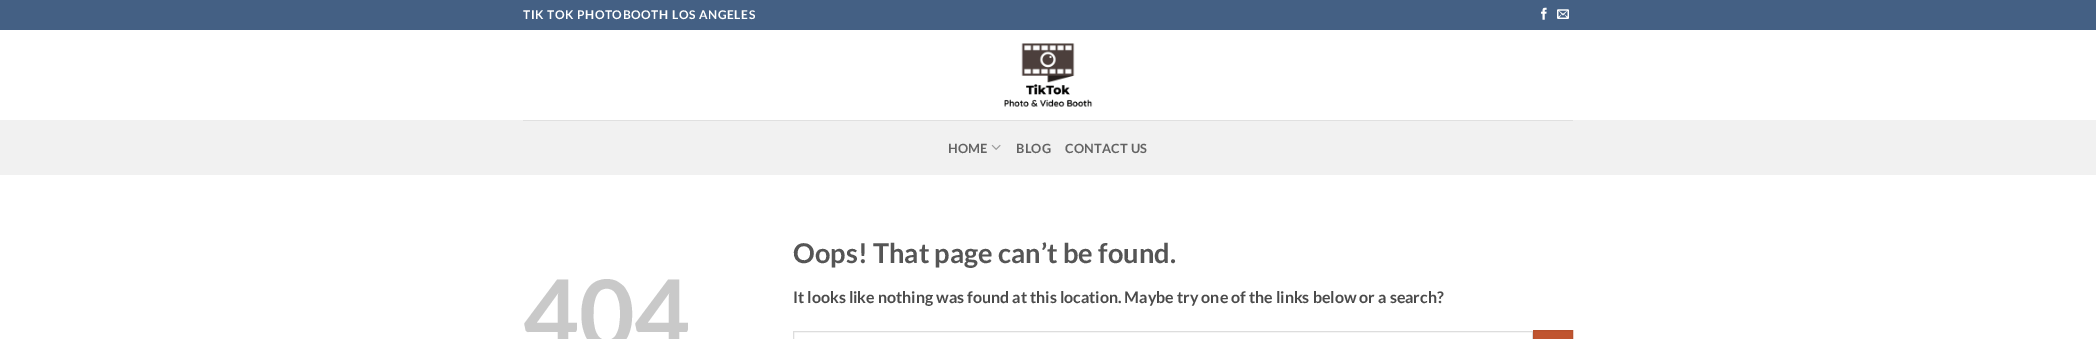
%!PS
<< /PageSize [2096 339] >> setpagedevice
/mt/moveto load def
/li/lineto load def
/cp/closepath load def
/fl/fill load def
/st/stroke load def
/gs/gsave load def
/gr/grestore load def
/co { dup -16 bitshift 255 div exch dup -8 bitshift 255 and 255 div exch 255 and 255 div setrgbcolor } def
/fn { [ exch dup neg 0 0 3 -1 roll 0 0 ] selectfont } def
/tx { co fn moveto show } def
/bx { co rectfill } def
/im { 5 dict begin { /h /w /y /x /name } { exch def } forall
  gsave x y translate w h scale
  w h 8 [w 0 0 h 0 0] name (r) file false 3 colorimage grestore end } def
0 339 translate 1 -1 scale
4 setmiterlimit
0 0 2096 339 16#FFFFFF bx
0 0 2096 30 16#446084 bx
(media/1.raw) 1541 7 6 13 im
(media/2.raw) 1557 9 12 10 im
(media/3.raw) 1004 43 89 64 im
0 120 2096 55 16#F1F1F1 bx
523 120 1050 1 16#E0E0E0 bx
(media/4.raw) 991 144 10 6 im
16#DDDDDD co
793.5 331.5 739 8 rectstroke
16#C05530 co
1533.5 330.5 mt 1572.5 330.5 li 1572.5 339.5 li 1533.5 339.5 li cp gs fl gr
16#B6512E co
st
/Lato-Bold 12 fn
16#FFFFFF co
523 19 mt .6 0 (TIK TOK PHOTOBOOTH LOS ANGELES) ashow
/Lato-Bold 12.75 fn
16#636363 co
948 153 mt .25 0 (HOME) ashow
1016 153 mt .25 0 (BLOG) ashow
1065 153 mt .25 0 (CONTACT US) ashow
(404) 523 349 /Lato-Bold 96 16#C9C9C9 tx
(Oops! That page can’t be found.) 793 263 /Lato-Bold 27.25 16#555555 tx
(It looks like nothing was found at this location. Maybe try one of the links below or a search?) 793 303 /Lato-Bold 16 16#4A4A4A tx
showpage
